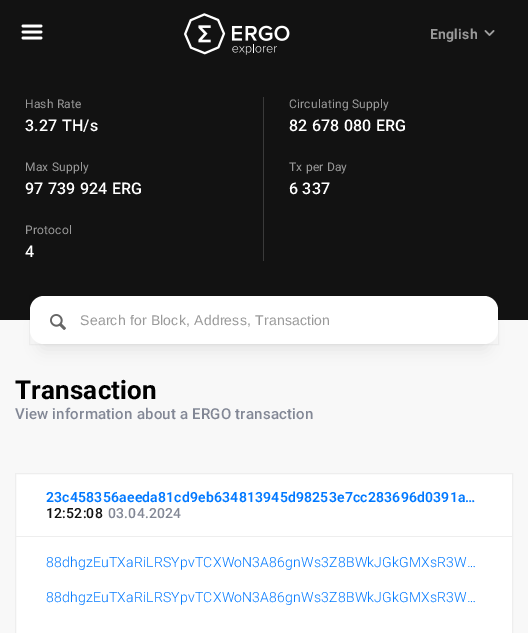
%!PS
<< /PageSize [528 633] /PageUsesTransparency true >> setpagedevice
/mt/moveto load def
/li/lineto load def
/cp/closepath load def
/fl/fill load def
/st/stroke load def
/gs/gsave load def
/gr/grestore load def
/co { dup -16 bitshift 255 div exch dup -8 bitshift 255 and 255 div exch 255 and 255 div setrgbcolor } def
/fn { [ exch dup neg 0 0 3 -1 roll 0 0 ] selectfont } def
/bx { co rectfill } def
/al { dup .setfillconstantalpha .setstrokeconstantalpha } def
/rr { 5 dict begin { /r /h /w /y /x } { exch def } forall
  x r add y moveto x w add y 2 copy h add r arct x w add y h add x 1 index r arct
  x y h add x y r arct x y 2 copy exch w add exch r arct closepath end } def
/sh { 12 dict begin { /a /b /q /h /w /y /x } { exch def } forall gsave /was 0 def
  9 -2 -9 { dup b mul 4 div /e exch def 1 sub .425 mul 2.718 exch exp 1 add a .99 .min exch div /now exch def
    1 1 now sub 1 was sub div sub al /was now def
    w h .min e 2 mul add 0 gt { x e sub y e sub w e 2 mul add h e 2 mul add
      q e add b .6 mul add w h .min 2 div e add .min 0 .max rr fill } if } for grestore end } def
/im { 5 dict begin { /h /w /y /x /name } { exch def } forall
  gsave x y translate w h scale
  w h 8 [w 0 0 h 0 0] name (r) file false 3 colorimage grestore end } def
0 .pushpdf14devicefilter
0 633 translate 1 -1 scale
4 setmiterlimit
0 0 528 633 16#F8F8F8 bx
0 0 528 320 16#121212 bx
(media/1.raw) 21 24 22 16 im
(media/2.raw) 184 13 106 42 im
(media/3.raw) 484 30 11 6 im
263 97 1 164 16#3A3A3A bx
16#000000 co
40 321 448 28 4 7.5 .08 sh
0.04 al
29.5 295.5 469 49 rectstroke
1 al
16#FFFFFF co
30 296 468 48 14 rr fl
(media/4.raw) 50 314 16 16 im
15.5 473.5 mt 512.5 473.5 li 512.5 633.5 li 15.5 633.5 li cp gs fl gr
16#EEEEEE co
st
16 536 496 1 16#EEEEEE bx
/Roboto-Bold 14 fn
16#999999 co
430 39 mt .2 0 (English) ashow
/Roboto-Regular 12 fn
25 108 mt .2 0 (Hash Rate) ashow
/Roboto-Medium 16 fn
16#FFFFFF co
25 131 mt .2 0 (3.27 TH/s) ashow
/Roboto-Regular 12 fn
16#999999 co
289 108 mt .2 0 (Circulating Supply) ashow
/Roboto-Medium 16 fn
16#FFFFFF co
289 131 mt .2 0 (82 678 080 ERG) ashow
/Roboto-Regular 12 fn
16#999999 co
25 171 mt .2 0 (Max Supply) ashow
/Roboto-Medium 16 fn
16#FFFFFF co
25 194 mt .2 0 (97 739 924 ERG) ashow
/Roboto-Regular 12 fn
16#999999 co
289 171 mt .2 0 (Tx per Day) ashow
/Roboto-Medium 16 fn
16#FFFFFF co
289 194 mt .2 0 (6 337) ashow
/Roboto-Regular 12 fn
16#999999 co
25 234 mt .2 0 (Protocol) ashow
/Roboto-Medium 16 fn
16#FFFFFF co
25 257 mt .2 0 (4) ashow
/LiberationSans-Regular 14 fn
16#999999 co
80 325 mt .2 0 (Search for Block, Address, Transaction) ashow
/Roboto-Bold 26 fn
16#000000 co
15 399 mt .2 0 (Transaction) ashow
/Roboto-Medium 15 fn
16#828795 co
15 419 mt .2 0 (View information about a ERGO transaction) ashow
/Roboto-SemiBold 14 fn
16#0078FF co
46 502 mt .2 0 (23c458356aeeda81cd9eb634813945d98253e7cc283696d0391a…) ashow
/Roboto-Medium 14 fn
16#121212 co
46 518 mt .2 0 (12:52:08) ashow
16#828795 co
108 518 mt .2 0 (03.04.2024) ashow
/Roboto-Light 14 fn
16#0078FF co
46 567 mt .2 0 (88dhgzEuTXaRiLRSYpvTCXWoN3A86gnWs3Z8BWkJGkGMXsR3W…) ashow
46 602 mt .2 0 (88dhgzEuTXaRiLRSYpvTCXWoN3A86gnWs3Z8BWkJGkGMXsR3W…) ashow
.poppdf14devicefilter showpage
